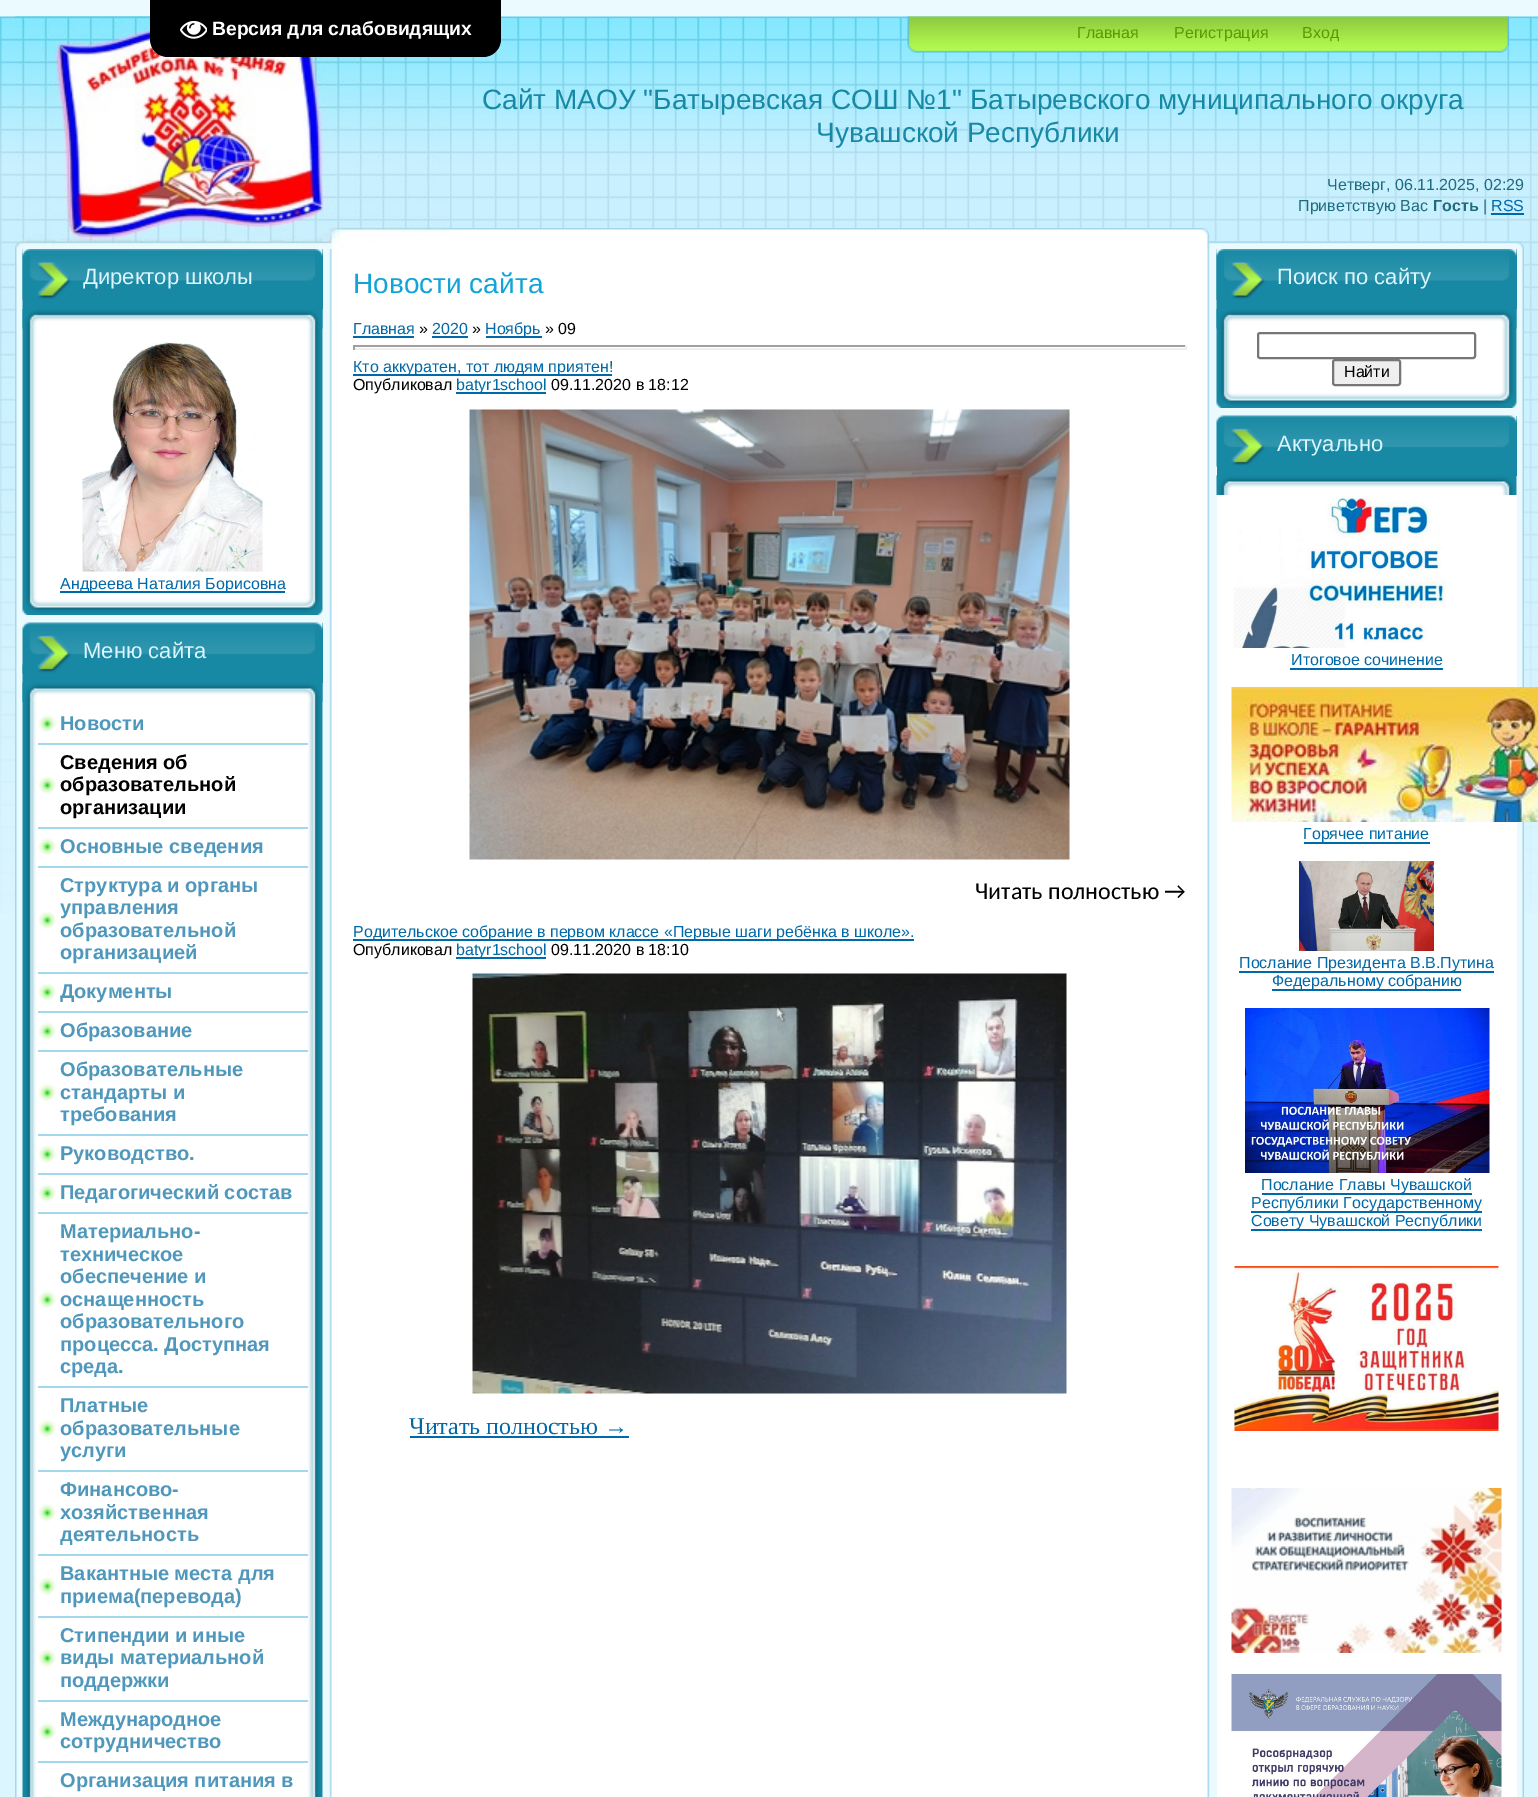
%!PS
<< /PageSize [1538 1797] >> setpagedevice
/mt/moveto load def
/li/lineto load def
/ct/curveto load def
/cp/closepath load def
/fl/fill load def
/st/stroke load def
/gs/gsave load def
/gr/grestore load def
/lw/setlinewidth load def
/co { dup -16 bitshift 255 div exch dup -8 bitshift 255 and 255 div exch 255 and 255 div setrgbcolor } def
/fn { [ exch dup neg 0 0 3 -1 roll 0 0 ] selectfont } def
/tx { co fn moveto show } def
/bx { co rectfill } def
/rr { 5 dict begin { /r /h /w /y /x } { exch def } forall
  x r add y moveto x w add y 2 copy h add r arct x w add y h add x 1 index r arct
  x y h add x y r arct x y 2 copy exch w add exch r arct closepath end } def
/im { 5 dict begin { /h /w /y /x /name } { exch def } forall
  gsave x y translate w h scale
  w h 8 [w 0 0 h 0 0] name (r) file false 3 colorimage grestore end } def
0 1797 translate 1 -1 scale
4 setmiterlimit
0 0 1538 1797 16#EBFAFF bx
(media/2.raw) 0 16 1538 897 im
(media/4.raw) 15 16 435 233 im
16#000000 co
150 0 mt 501 0 li 501 39 li 501 49 493 57 483 57 ct 168 57 li 158 57 150 49 150 39 ct cp fl
(media/1.raw) 180 20 27 19 im
0 913 1538 884 16#DCF6FF bx
(media/3.raw) 450 228 1074 21 im
(media/5.raw) 907 16 602 37 im
1491 213 33 2 16#0069A9 bx
337 249 1 1548 16#EBFAFF bx
(media/6.raw) 15 249 323 1548 im
322 309 1 306 16#FFFFFF bx
(media/7.raw) 22 249 301 366 im
24 249 299 60 16#1789A4 bx
(media/8.raw) 22 249 301 51 im
(media/9.raw) 22 309 301 20 im
(media/10.raw) 82 337 181 235 im
60 591 225 2 16#0069A9 bx
322 683 1 1114 16#FFFFFF bx
(media/11.raw) 22 664 301 1133 im
23 623 300 60 16#1789A4 bx
(media/12.raw) 22 622 301 52 im
(media/13.raw) 22 682 301 20 im
(media/14.raw) 38 714 18 18 im
38 743 270 2 16#A2D7EC bx
(media/15.raw) 38 776 18 18 im
38 827 270 2 16#A2D7EC bx
(media/14.raw) 38 837 18 18 im
38 866 270 2 16#A2D7EC bx
(media/15.raw) 38 911 18 18 im
38 972 270 2 16#A2D7EC bx
(media/15.raw) 38 983 18 18 im
38 1011 270 2 16#A2D7EC bx
(media/15.raw) 38 1022 18 18 im
38 1050 270 2 16#A2D7EC bx
(media/14.raw) 38 1083 18 18 im
38 1134 270 2 16#A2D7EC bx
(media/15.raw) 38 1145 18 18 im
38 1173 270 2 16#A2D7EC bx
(media/15.raw) 38 1184 18 18 im
38 1212 270 2 16#A2D7EC bx
(media/14.raw) 38 1290 18 18 im
38 1386 270 2 16#A2D7EC bx
(media/14.raw) 38 1419 18 18 im
38 1470 270 2 16#A2D7EC bx
(media/14.raw) 38 1503 18 18 im
38 1554 270 2 16#A2D7EC bx
(media/15.raw) 38 1577 18 18 im
38 1616 270 2 16#A2D7EC bx
(media/15.raw) 38 1649 18 18 im
38 1700 270 2 16#A2D7EC bx
(media/14.raw) 38 1722 18 18 im
38 1761 270 2 16#A2D7EC bx
(media/16.raw) 42 1794 11 3 im
338 249 864 1548 16#FFFFFF bx
353 336 61 2 16#0069A9 bx
432 336 36 2 16#0069A9 bx
486 336 56 2 16#0069A9 bx
353 345 834 2 16#9F9F9F bx
1185 345 2 5 16#EEEEEE bx
353 348 834 2 16#EEEEEE bx
353 345 2 5 16#9F9F9F bx
353 374 259 2 16#0069A9 bx
456 392 90 2 16#0069A9 bx
(media/17.raw) 469 409 601 451 im
353 939 561 2 16#0069A9 bx
456 957 90 2 16#0069A9 bx
(media/18.raw) 472 973 595 421 im
410 1436 219 2 16#0069A9 bx
(media/19.raw) 1202 249 322 1548 im
1516 309 1 99 16#FFFFFF bx
(media/20.raw) 1216 249 301 159 im
1218 249 299 60 16#1789A4 bx
(media/8.raw) 1216 249 301 51 im
(media/9.raw) 1216 309 301 20 im
16#767676 co
2 lw
1258 333 217 25 2 rr st
16#EFEFEF co
1333 360 67 25 2 rr gs fl gr
16#767676 co
st
1217 476 300 1321 16#FFFFFF bx
1217 416 300 60 16#1789A4 bx
(media/21.raw) 1216 415 301 52 im
(media/22.raw) 1216 475 301 20 im
(media/23.raw) 1233 498 214 150 im
1290 668 153 2 16#0069A9 bx
(media/24.raw) 1231 687 307 135 im
1304 842 126 2 16#0069A9 bx
(media/25.raw) 1299 861 135 90 im
1239 971 255 2 16#0069A9 bx
1272 989 189 2 16#0069A9 bx
(media/26.raw) 1245 1008 245 165 im
1262 1193 210 2 16#0069A9 bx
1251 1211 231 2 16#0069A9 bx
1251 1229 231 2 16#0069A9 bx
(media/27.raw) 1234 1266 265 165 im
(media/28.raw) 1231 1488 271 165 im
(media/29.raw) 1231 1674 271 123 im
(Версия для слабовидящих) 212 35 /LiberationSans-Bold 19.25 16#FFFFFF tx
(Главная) 1077 38 /LiberationSans-Regular 16 16#599B00 tx
(Регистрация) 1174 38 /LiberationSans-Regular 16 16#599B00 tx
(Вход) 1302 38 /LiberationSans-Regular 16 16#599B00 tx
(Сайт МАОУ "Батыревская СОШ №1" Батыревского муниципального округа) 482 109 /LiberationSans-Regular 28 16#1789A4 tx
(Чувашской Республики) 816 142 /LiberationSans-Regular 28 16#1789A4 tx
(Четверг, 06.11.2025, 02:29) 1327 190 /LiberationSans-Regular 16 16#1F6C7F tx
(Приветствую Вас) 1298 211 /LiberationSans-Regular 16 16#1F6C7F tx
(Гость) 1433 211 /LiberationSans-Bold 16 16#1F6C7F tx
(|) 1483 211 /LiberationSans-Regular 16 16#1F6C7F tx
(RSS) 1491 211 /LiberationSans-Regular 16 16#0069A9 tx
(Директор школы) 83 284 /LiberationSans-Regular 22 16#DCF6FF tx
(Андреева Наталия Борисовна) 60 589 /LiberationSans-Regular 16 16#0069A9 tx
(Меню сайта) 83 658 /LiberationSans-Regular 22 16#DCF6FF tx
(Новости) 60 730 /LiberationSans-Bold 20 16#4F98BC tx
(Сведения об) 60 769 /LiberationSans-Bold 20 16#000000 tx
(образовательной) 60 791 /LiberationSans-Bold 20 16#000000 tx
(организации) 60 814 /LiberationSans-Bold 20 16#000000 tx
(Основные сведения) 60 853 /LiberationSans-Bold 20 16#4F98BC tx
(Структура и органы) 60 892 /LiberationSans-Bold 20 16#4F98BC tx
(управления) 60 914 /LiberationSans-Bold 20 16#4F98BC tx
(образовательной) 60 937 /LiberationSans-Bold 20 16#4F98BC tx
(организацией) 60 959 /LiberationSans-Bold 20 16#4F98BC tx
(Документы) 60 998 /LiberationSans-Bold 20 16#4F98BC tx
(Образование) 60 1037 /LiberationSans-Bold 20 16#4F98BC tx
(Образовательные) 60 1076 /LiberationSans-Bold 20 16#4F98BC tx
(стандарты и) 60 1099 /LiberationSans-Bold 20 16#4F98BC tx
(требования) 60 1121 /LiberationSans-Bold 20 16#4F98BC tx
(Руководство.) 60 1160 /LiberationSans-Bold 20 16#4F98BC tx
(Педагогический состав) 60 1199 /LiberationSans-Bold 20 16#4F98BC tx
(Материально-) 60 1238 /LiberationSans-Bold 20 16#4F98BC tx
(техническое) 60 1261 /LiberationSans-Bold 20 16#4F98BC tx
(обеспечение и) 60 1283 /LiberationSans-Bold 20 16#4F98BC tx
(оснащенность) 60 1306 /LiberationSans-Bold 20 16#4F98BC tx
(образовательного) 60 1328 /LiberationSans-Bold 20 16#4F98BC tx
(процесса. Доступная) 60 1351 /LiberationSans-Bold 20 16#4F98BC tx
(среда.) 60 1373 /LiberationSans-Bold 20 16#4F98BC tx
(Платные) 60 1412 /LiberationSans-Bold 20 16#4F98BC tx
(образовательные) 60 1435 /LiberationSans-Bold 20 16#4F98BC tx
(услуги) 60 1457 /LiberationSans-Bold 20 16#4F98BC tx
(Финансово-) 60 1496 /LiberationSans-Bold 20 16#4F98BC tx
(хозяйственная) 60 1519 /LiberationSans-Bold 20 16#4F98BC tx
(деятельность) 60 1541 /LiberationSans-Bold 20 16#4F98BC tx
(Вакантные места для) 60 1580 /LiberationSans-Bold 20 16#4F98BC tx
(приема\(перевода\)) 60 1603 /LiberationSans-Bold 20 16#4F98BC tx
(Стипендии и иные) 60 1642 /LiberationSans-Bold 20 16#4F98BC tx
(виды материальной) 60 1664 /LiberationSans-Bold 20 16#4F98BC tx
(поддержки) 60 1687 /LiberationSans-Bold 20 16#4F98BC tx
(Международное) 60 1726 /LiberationSans-Bold 20 16#4F98BC tx
(сотрудничество) 60 1748 /LiberationSans-Bold 20 16#4F98BC tx
(Организация питания в) 60 1787 /LiberationSans-Bold 20 16#4F98BC tx
(Новости сайта) 353 293 /LiberationSans-Regular 28 16#12A4D8 tx
(Главная) 353 334 /LiberationSans-Regular 16 16#0069A9 tx
(») 419 334 /LiberationSans-Regular 16 16#000000 tx
(2020) 432 334 /LiberationSans-Regular 16 16#0069A9 tx
(») 472 334 /LiberationSans-Regular 16 16#000000 tx
(Ноябрь) 485 334 /LiberationSans-Regular 16 16#0069A9 tx
(» 09) 545 334 /LiberationSans-Regular 16 16#000000 tx
(Кто аккуратен, тот людям приятен!) 353 372 /LiberationSans-Regular 16 16#0069A9 tx
(Опубликовал) 353 390 /LiberationSans-Regular 16 16#000000 tx
(batyr1school) 456 390 /LiberationSans-Regular 16 16#0069A9 tx
(09.11.2020 в 18:12) 551 390 /LiberationSans-Regular 16 16#000000 tx
(Читать полностью →) 975 899 /Carlito-Regular 24 16#000000 tx
(Родительское собрание в первом классе «Первые шаги ребёнка в школе».) 353 937 /LiberationSans-Regular 16 16#0069A9 tx
(Опубликовал) 353 955 /LiberationSans-Regular 16 16#000000 tx
(batyr1school) 456 955 /LiberationSans-Regular 16 16#0069A9 tx
(09.11.2020 в 18:10) 551 955 /LiberationSans-Regular 16 16#000000 tx
(Читать полностью →) 409 1434 /LiberationSerif-Regular 24 16#0069A9 tx
(Поиск по сайту) 1277 284 /LiberationSans-Regular 22 16#DCF6FF tx
(Найти) 1344 377 /LiberationSans-Regular 16 16#000000 tx
(Актуально) 1277 451 /LiberationSans-Regular 22 16#DCF6FF tx
(Итоговое сочинение) 1291 665 /LiberationSans-Regular 16 16#0069A9 tx
(Горячее питание) 1303 839 /LiberationSans-Regular 16 16#0069A9 tx
(Послание Президента В.В.Путина) 1239 968 /LiberationSans-Regular 16 16#0069A9 tx
(Федеральному собранию) 1272 986 /LiberationSans-Regular 16 16#0069A9 tx
(Послание Главы Чувашской) 1261 1190 /LiberationSans-Regular 16 16#0069A9 tx
(Республики Государственному) 1251 1208 /LiberationSans-Regular 16 16#0069A9 tx
(Совету Чувашской Республики) 1251 1226 /LiberationSans-Regular 16 16#0069A9 tx
showpage
